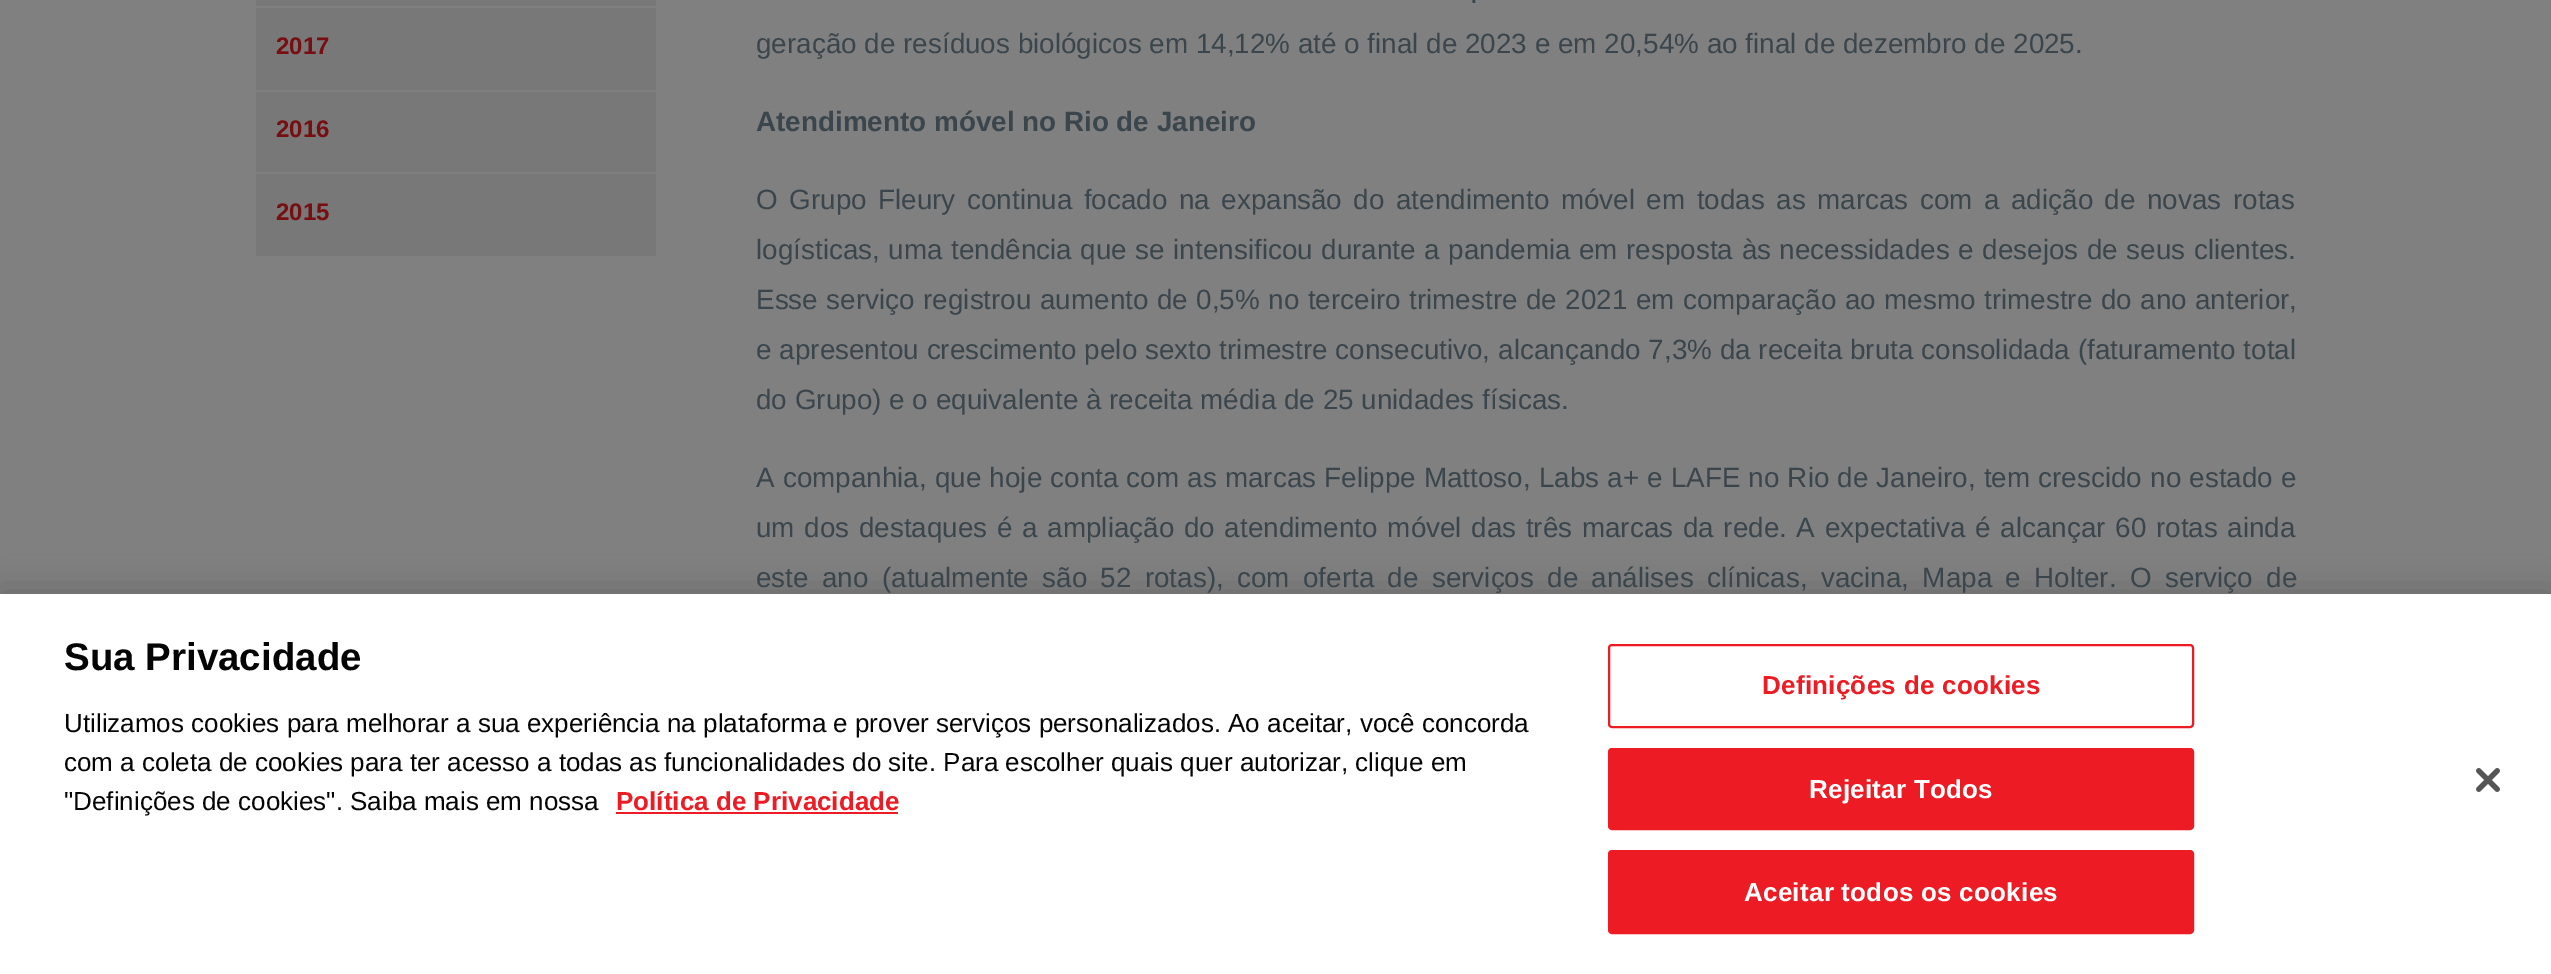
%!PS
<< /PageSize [2551 974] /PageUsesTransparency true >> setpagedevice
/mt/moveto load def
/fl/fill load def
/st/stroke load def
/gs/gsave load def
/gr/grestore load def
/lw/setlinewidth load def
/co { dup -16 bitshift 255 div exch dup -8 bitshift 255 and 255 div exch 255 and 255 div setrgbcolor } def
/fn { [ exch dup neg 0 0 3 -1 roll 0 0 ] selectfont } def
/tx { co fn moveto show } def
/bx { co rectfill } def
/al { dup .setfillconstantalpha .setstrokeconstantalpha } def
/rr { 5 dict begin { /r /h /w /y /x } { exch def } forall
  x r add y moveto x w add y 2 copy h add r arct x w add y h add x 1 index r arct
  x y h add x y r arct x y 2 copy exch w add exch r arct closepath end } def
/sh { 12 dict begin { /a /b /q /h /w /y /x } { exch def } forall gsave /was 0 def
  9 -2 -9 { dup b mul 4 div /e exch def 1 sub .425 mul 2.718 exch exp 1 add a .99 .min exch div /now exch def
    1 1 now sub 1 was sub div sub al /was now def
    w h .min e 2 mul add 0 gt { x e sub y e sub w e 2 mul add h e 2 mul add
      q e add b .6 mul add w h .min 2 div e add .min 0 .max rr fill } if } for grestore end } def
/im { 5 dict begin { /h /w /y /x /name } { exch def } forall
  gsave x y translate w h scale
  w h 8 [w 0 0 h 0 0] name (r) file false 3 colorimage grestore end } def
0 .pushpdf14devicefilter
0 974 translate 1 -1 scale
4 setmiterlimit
0 0 2551 974 16#808080 bx
256 0 400 6 16#787878 bx
256 8 400 82 16#787878 bx
256 92 400 80 16#787878 bx
256 174 400 82 16#787878 bx
16#000000 co
0 594 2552 380 0 18 .2 sh
0 594 2551 380 16#FFFFFF bx
616 812 282 2 16#ED1C24 bx
2 lw
1609 645 584 82 3 rr st
1609 749 584 80 3 rr gs fl gr
st
1609 851 584 82 3 rr gs fl gr
st
(media/1.raw) 2476 768 24 24 im
(2017) 276 54 /LiberationSans-Bold 24 16#770E12 tx
(2016) 276 137 /LiberationSans-Bold 24 16#770E12 tx
(2015) 276 220 /LiberationSans-Bold 24 16#770E12 tx
/LiberationSans-Regular 27.85 fn
16#3A454C co
1470 3 mt 1 0 32 (.) widthshow
(geração de resíduos biológicos em 14,12% até o final de 2023 e em 20,54% ao final de dezembro de 2025.) 756 53 /LiberationSans-Regular 27.85 16#3A454C tx
(Atendimento móvel no Rio de Janeiro) 756 131 /LiberationSans-Bold 27.85 16#3A454C tx
/LiberationSans-Regular 27.85 fn
756 209 mt 3.75 0 32 (O Grupo Fleury continua focado na expansão do atendimento móvel em todas as marcas com a adição de novas rotas) widthshow
756 259 mt .8 0 32 (logísticas, uma tendência que se intensificou durante a pandemia em resposta às necessidades e desejos de seus clientes.) widthshow
756 309 mt .75 0 32 (Esse serviço registrou aumento de 0,5% no terceiro trimestre de 2021 em comparação ao mesmo trimestre do ano anterior,) widthshow
756 359 mt .1 0 32 (e apresentou crescimento pelo sexto trimestre consecutivo, alcançando 7,3% da receita bruta consolidada \(faturamento total) widthshow
(do Grupo\) e o equivalente à receita média de 25 unidades físicas.) 756 409 /LiberationSans-Regular 27.85 16#3A454C tx
756 487 mt .4 0 32 (A companhia, que hoje conta com as marcas Felippe Mattoso, Labs a+ e LAFE no Rio de Janeiro, tem crescido no estado e) widthshow
756 537 mt 1.9 0 32 (um dos destaques é a ampliação do atendimento móvel das três marcas da rede. A expectativa é alcançar 60 rotas ainda) widthshow
756 587 mt 5.6 0 32 (este ano \(atualmente são 52 rotas\), com oferta de serviços de análises clínicas, vacina, Mapa e Holter. O serviço de) widthshow
(Sua Privacidade) 64 670 /LiberationSans-Bold 38.5 16#050505 tx
(Utilizamos cookies para melhorar a sua experiência na plataforma e prover serviços personalizados. Ao aceitar, você concorda) 64 732 /LiberationSans-Regular 26.02 16#050505 tx
(com a coleta de cookies para ter acesso a todas as funcionalidades do site. Para escolher quais quer autorizar, clique em) 64 771 /LiberationSans-Regular 26.02 16#050505 tx
("Definições de cookies". Saiba mais em nossa) 64 810 /LiberationSans-Regular 26.02 16#050505 tx
(Política de Privacidade) 616 810 /LiberationSans-Bold 26.02 16#ED1C24 tx
1762 694 mt .25 0 (Definições de cookies) ashow
16#FFFFFF co
1809 798 mt .25 0 (Rejeitar Todos) ashow
1744 901 mt .25 0 (Aceitar todos os cookies) ashow
.poppdf14devicefilter showpage
